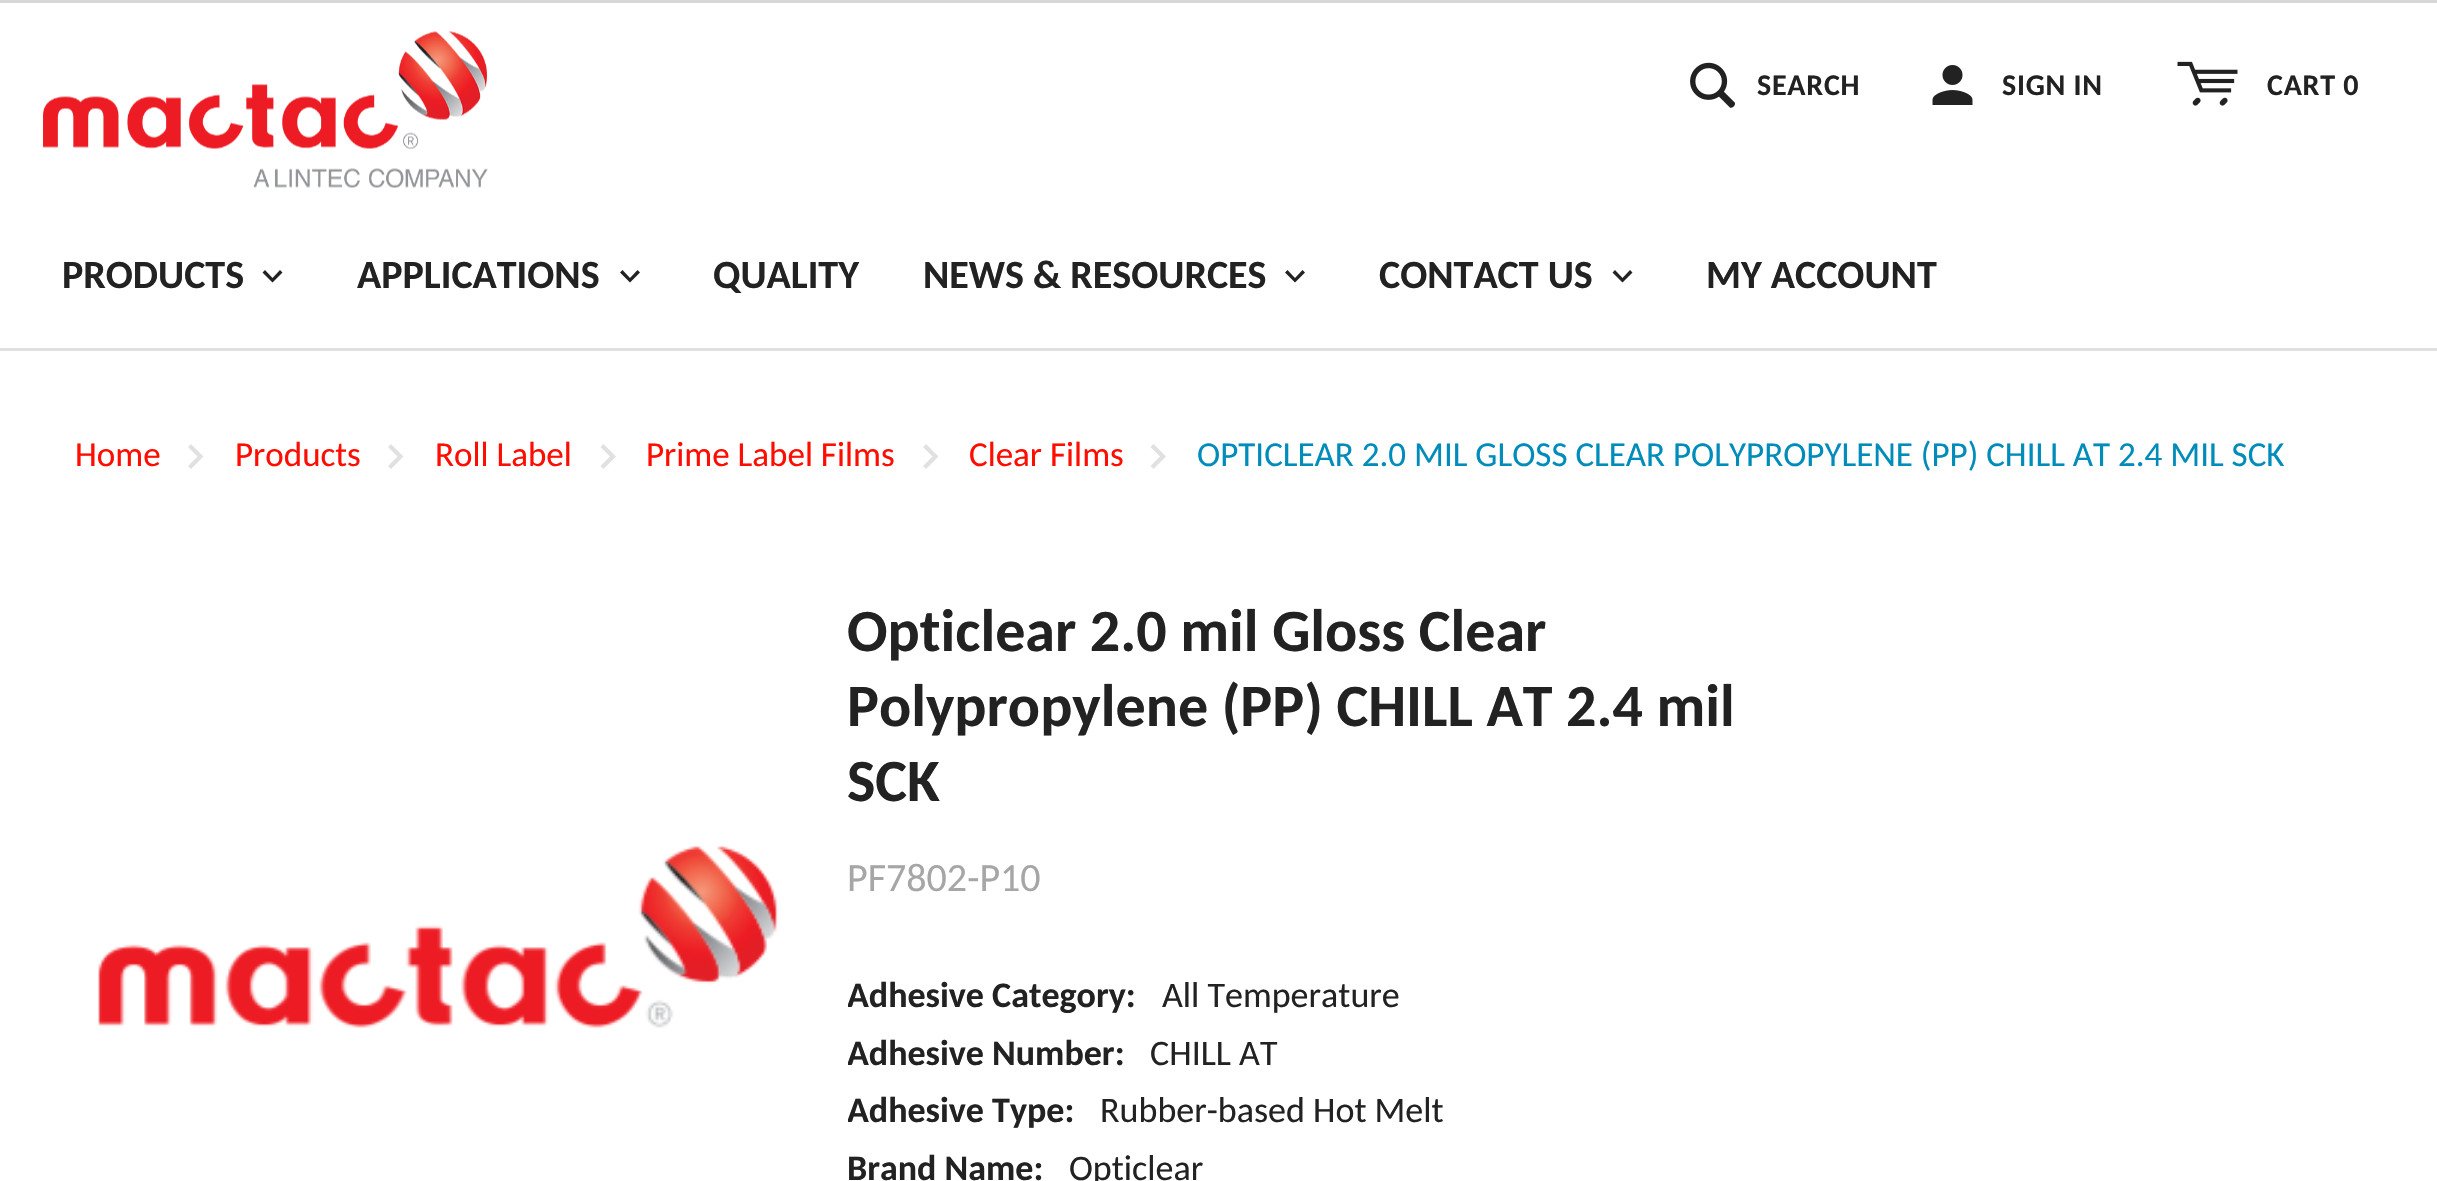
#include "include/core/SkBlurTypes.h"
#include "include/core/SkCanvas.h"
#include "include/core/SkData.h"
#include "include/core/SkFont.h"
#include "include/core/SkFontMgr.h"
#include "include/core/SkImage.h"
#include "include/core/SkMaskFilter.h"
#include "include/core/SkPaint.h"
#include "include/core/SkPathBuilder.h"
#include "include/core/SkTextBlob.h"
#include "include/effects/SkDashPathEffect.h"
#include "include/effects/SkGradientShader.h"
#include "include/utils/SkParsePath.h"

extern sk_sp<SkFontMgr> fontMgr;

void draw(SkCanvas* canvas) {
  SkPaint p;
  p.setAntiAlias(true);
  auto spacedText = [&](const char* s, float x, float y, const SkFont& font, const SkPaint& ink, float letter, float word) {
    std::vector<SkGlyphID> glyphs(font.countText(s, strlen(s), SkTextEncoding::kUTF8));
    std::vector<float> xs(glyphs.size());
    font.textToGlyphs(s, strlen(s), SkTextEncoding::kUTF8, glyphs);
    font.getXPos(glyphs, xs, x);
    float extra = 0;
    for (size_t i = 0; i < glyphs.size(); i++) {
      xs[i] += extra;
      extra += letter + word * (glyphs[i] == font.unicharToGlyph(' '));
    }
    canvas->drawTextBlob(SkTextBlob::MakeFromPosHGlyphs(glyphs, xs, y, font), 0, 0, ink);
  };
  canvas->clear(SK_ColorWHITE);
  p.setColor(SkColorSetRGB(215, 215, 215));
  canvas->drawRect(SkRect::MakeLTRB(0, 0, 2437, 3), p);
  p.setColor(SkColorSetRGB(224, 224, 224));
  canvas->drawRect(SkRect::MakeLTRB(0, 348, 2437, 351), p);
  canvas->drawImageRect(SkImages::DeferredFromEncodedData(SkData::MakeFromFileName("images/1.png")), SkRect::MakeLTRB(43, 31, 488, 188), SkSamplingOptions());
  canvas->drawImageRect(SkImages::DeferredFromEncodedData(SkData::MakeFromFileName("images/2.png")), SkRect::MakeLTRB(1690, 62, 1735, 108), SkSamplingOptions());
  canvas->drawImageRect(SkImages::DeferredFromEncodedData(SkData::MakeFromFileName("images/3.png")), SkRect::MakeLTRB(1932, 65, 1973, 105), SkSamplingOptions());
  canvas->drawImageRect(SkImages::DeferredFromEncodedData(SkData::MakeFromFileName("images/4.png")), SkRect::MakeLTRB(2177, 61, 2238, 106), SkSamplingOptions());
  p.setColor(SkColorSetRGB(34, 34, 34));
  canvas->drawPath(SkPathBuilder().moveTo(280, 270).lineTo(272.5f, 278).lineTo(265, 270).lineTo(262.5f, 272.5f).lineTo(272.5f, 282.5f).lineTo(282.5f, 272.5f).close().detach(), p);
  canvas->drawPath(SkPathBuilder().moveTo(637.5f, 270).lineTo(630, 278).lineTo(622.5f, 270).lineTo(620, 272.5f).lineTo(630, 282.5f).lineTo(640, 272.5f).close().detach(), p);
  canvas->drawPath(SkPathBuilder().moveTo(1302.5f, 270).lineTo(1295, 278).lineTo(1287.5f, 270).lineTo(1285, 272.5f).lineTo(1295, 282.5f).lineTo(1305, 272.5f).close().detach(), p);
  canvas->drawPath(SkPathBuilder().moveTo(1630, 270).lineTo(1622.5f, 278).lineTo(1615, 270).lineTo(1612.5f, 272.5f).lineTo(1622.5f, 282.5f).lineTo(1632.5f, 272.5f).close().detach(), p);
  p.setColor(SkColorSetRGB(225, 225, 225));
  canvas->drawPath(SkPathBuilder().moveTo(191, 444).lineTo(188, 447).lineTo(197.5f, 456.5f).lineTo(188, 466).lineTo(191, 469).lineTo(203.5f, 456.5f).close().detach(), p);
  canvas->drawPath(SkPathBuilder().moveTo(391, 444).lineTo(388, 447).lineTo(397.5f, 456.5f).lineTo(388, 466).lineTo(391, 469).lineTo(403.5f, 456.5f).close().detach(), p);
  canvas->drawPath(SkPathBuilder().moveTo(603.5f, 444).lineTo(600.5f, 447).lineTo(610, 456.5f).lineTo(600.5f, 466).lineTo(603.5f, 469).lineTo(616, 456.5f).close().detach(), p);
  canvas->drawPath(SkPathBuilder().moveTo(926, 444).lineTo(923, 447).lineTo(932.5f, 456.5f).lineTo(923, 466).lineTo(926, 469).lineTo(938.5f, 456.5f).close().detach(), p);
  canvas->drawPath(SkPathBuilder().moveTo(1153.5f, 444).lineTo(1150.5f, 447).lineTo(1160, 456.5f).lineTo(1150.5f, 466).lineTo(1153.5f, 469).lineTo(1166, 456.5f).close().detach(), p);
  canvas->drawImageRect(SkImages::DeferredFromEncodedData(SkData::MakeFromFileName("images/5.png")), SkRect::MakeLTRB(98, 846, 779, 1029), SkSamplingOptions());
  SkFont font1(fontMgr->matchFamilyStyle("Carlito", SkFontStyle::Bold()), 30);
  font1.setSubpixel(true);
  p.setColor(SkColorSetRGB(34, 34, 34));
  spacedText("SEARCH", 1757, 95, font1, p, 0.75f, 0);
  spacedText("SIGN IN", 2002, 95, font1, p, 0.75f, 0);
  spacedText("CART 0", 2267, 95, font1, p, 0.75f, 0);
  SkFont font2(fontMgr->matchFamilyStyle("Carlito", SkFontStyle::Bold()), 40);
  font2.setSubpixel(true);
  canvas->drawString("PRODUCTS", 62, 288, font2, p);
  canvas->drawString("APPLICATIONS", 357, 288, font2, p);
  canvas->drawString("QUALITY", 713, 288, font2, p);
  canvas->drawString("NEWS & RESOURCES", 923, 288, font2, p);
  canvas->drawString("CONTACT US", 1379, 288, font2, p);
  canvas->drawString("MY ACCOUNT", 1706, 288, font2, p);
  SkFont font3(fontMgr->matchFamilyStyle("Carlito", SkFontStyle::Normal()), 35);
  font3.setSubpixel(true);
  p.setColor(SkColorSetRGB(255, 13, 0));
  canvas->drawString("Home", 75, 466, font3, p);
  canvas->drawString("Products", 235, 466, font3, p);
  canvas->drawString("Roll Label", 435, 466, font3, p);
  canvas->drawString("Prime Label Films", 646, 466, font3, p);
  canvas->drawString("Clear Films", 969, 466, font3, p);
  p.setColor(SkColorSetRGB(0, 140, 186));
  canvas->drawString("OPTICLEAR 2.0 MIL GLOSS CLEAR POLYPROPYLENE (PP) CHILL AT 2.4 MIL SCK", 1197, 466, font3, p);
  SkFont font4(fontMgr->matchFamilyStyle("Carlito", SkFontStyle::Bold()), 60);
  font4.setSubpixel(true);
  p.setColor(SkColorSetRGB(34, 34, 34));
  canvas->drawString("Opticlear 2.0 mil Gloss Clear", 847, 651, font4, p);
  canvas->drawString("Polypropylene (PP) CHILL AT 2.4 mil", 847, 726, font4, p);
  canvas->drawString("SCK", 847, 801, font4, p);
  SkFont font5(fontMgr->matchFamilyStyle("Carlito", SkFontStyle::Normal()), 40);
  font5.setSubpixel(true);
  p.setColor(SkColorSetRGB(166, 166, 166));
  canvas->drawString("PF7802-P10", 847, 891, font5, p);
  canvas->save();
  canvas->clipRect(SkRect::MakeLTRB(848, 968, 1753, 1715));
  SkFont font6(fontMgr->matchFamilyStyle("Carlito", SkFontStyle::Bold()), 36);
  font6.setSubpixel(true);
  p.setColor(SkColorSetRGB(34, 34, 34));
  canvas->drawString("Adhesive Category:", 847, 1007, font6, p);
  canvas->restore();
  SkFont font7(fontMgr->matchFamilyStyle("Carlito", SkFontStyle::Normal()), 36);
  font7.setSubpixel(true);
  canvas->drawString("All Temperature", 1162, 1007, font7, p);
  canvas->save();
  canvas->clipRect(SkRect::MakeLTRB(848, 968, 1753, 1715));
  canvas->drawString("Adhesive Number:", 847, 1065, font6, p);
  canvas->restore();
  canvas->drawString("CHILL AT", 1150, 1065, font7, p);
  canvas->save();
  canvas->clipRect(SkRect::MakeLTRB(848, 968, 1753, 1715));
  canvas->drawString("Adhesive Type:", 847, 1122, font6, p);
  canvas->restore();
  canvas->drawString("Rubber-based Hot Melt", 1100, 1122, font7, p);
  canvas->drawString("Brand Name:", 847, 1180, font6, p);
  canvas->drawString("Opticlear", 1069, 1180, font7, p);
}
